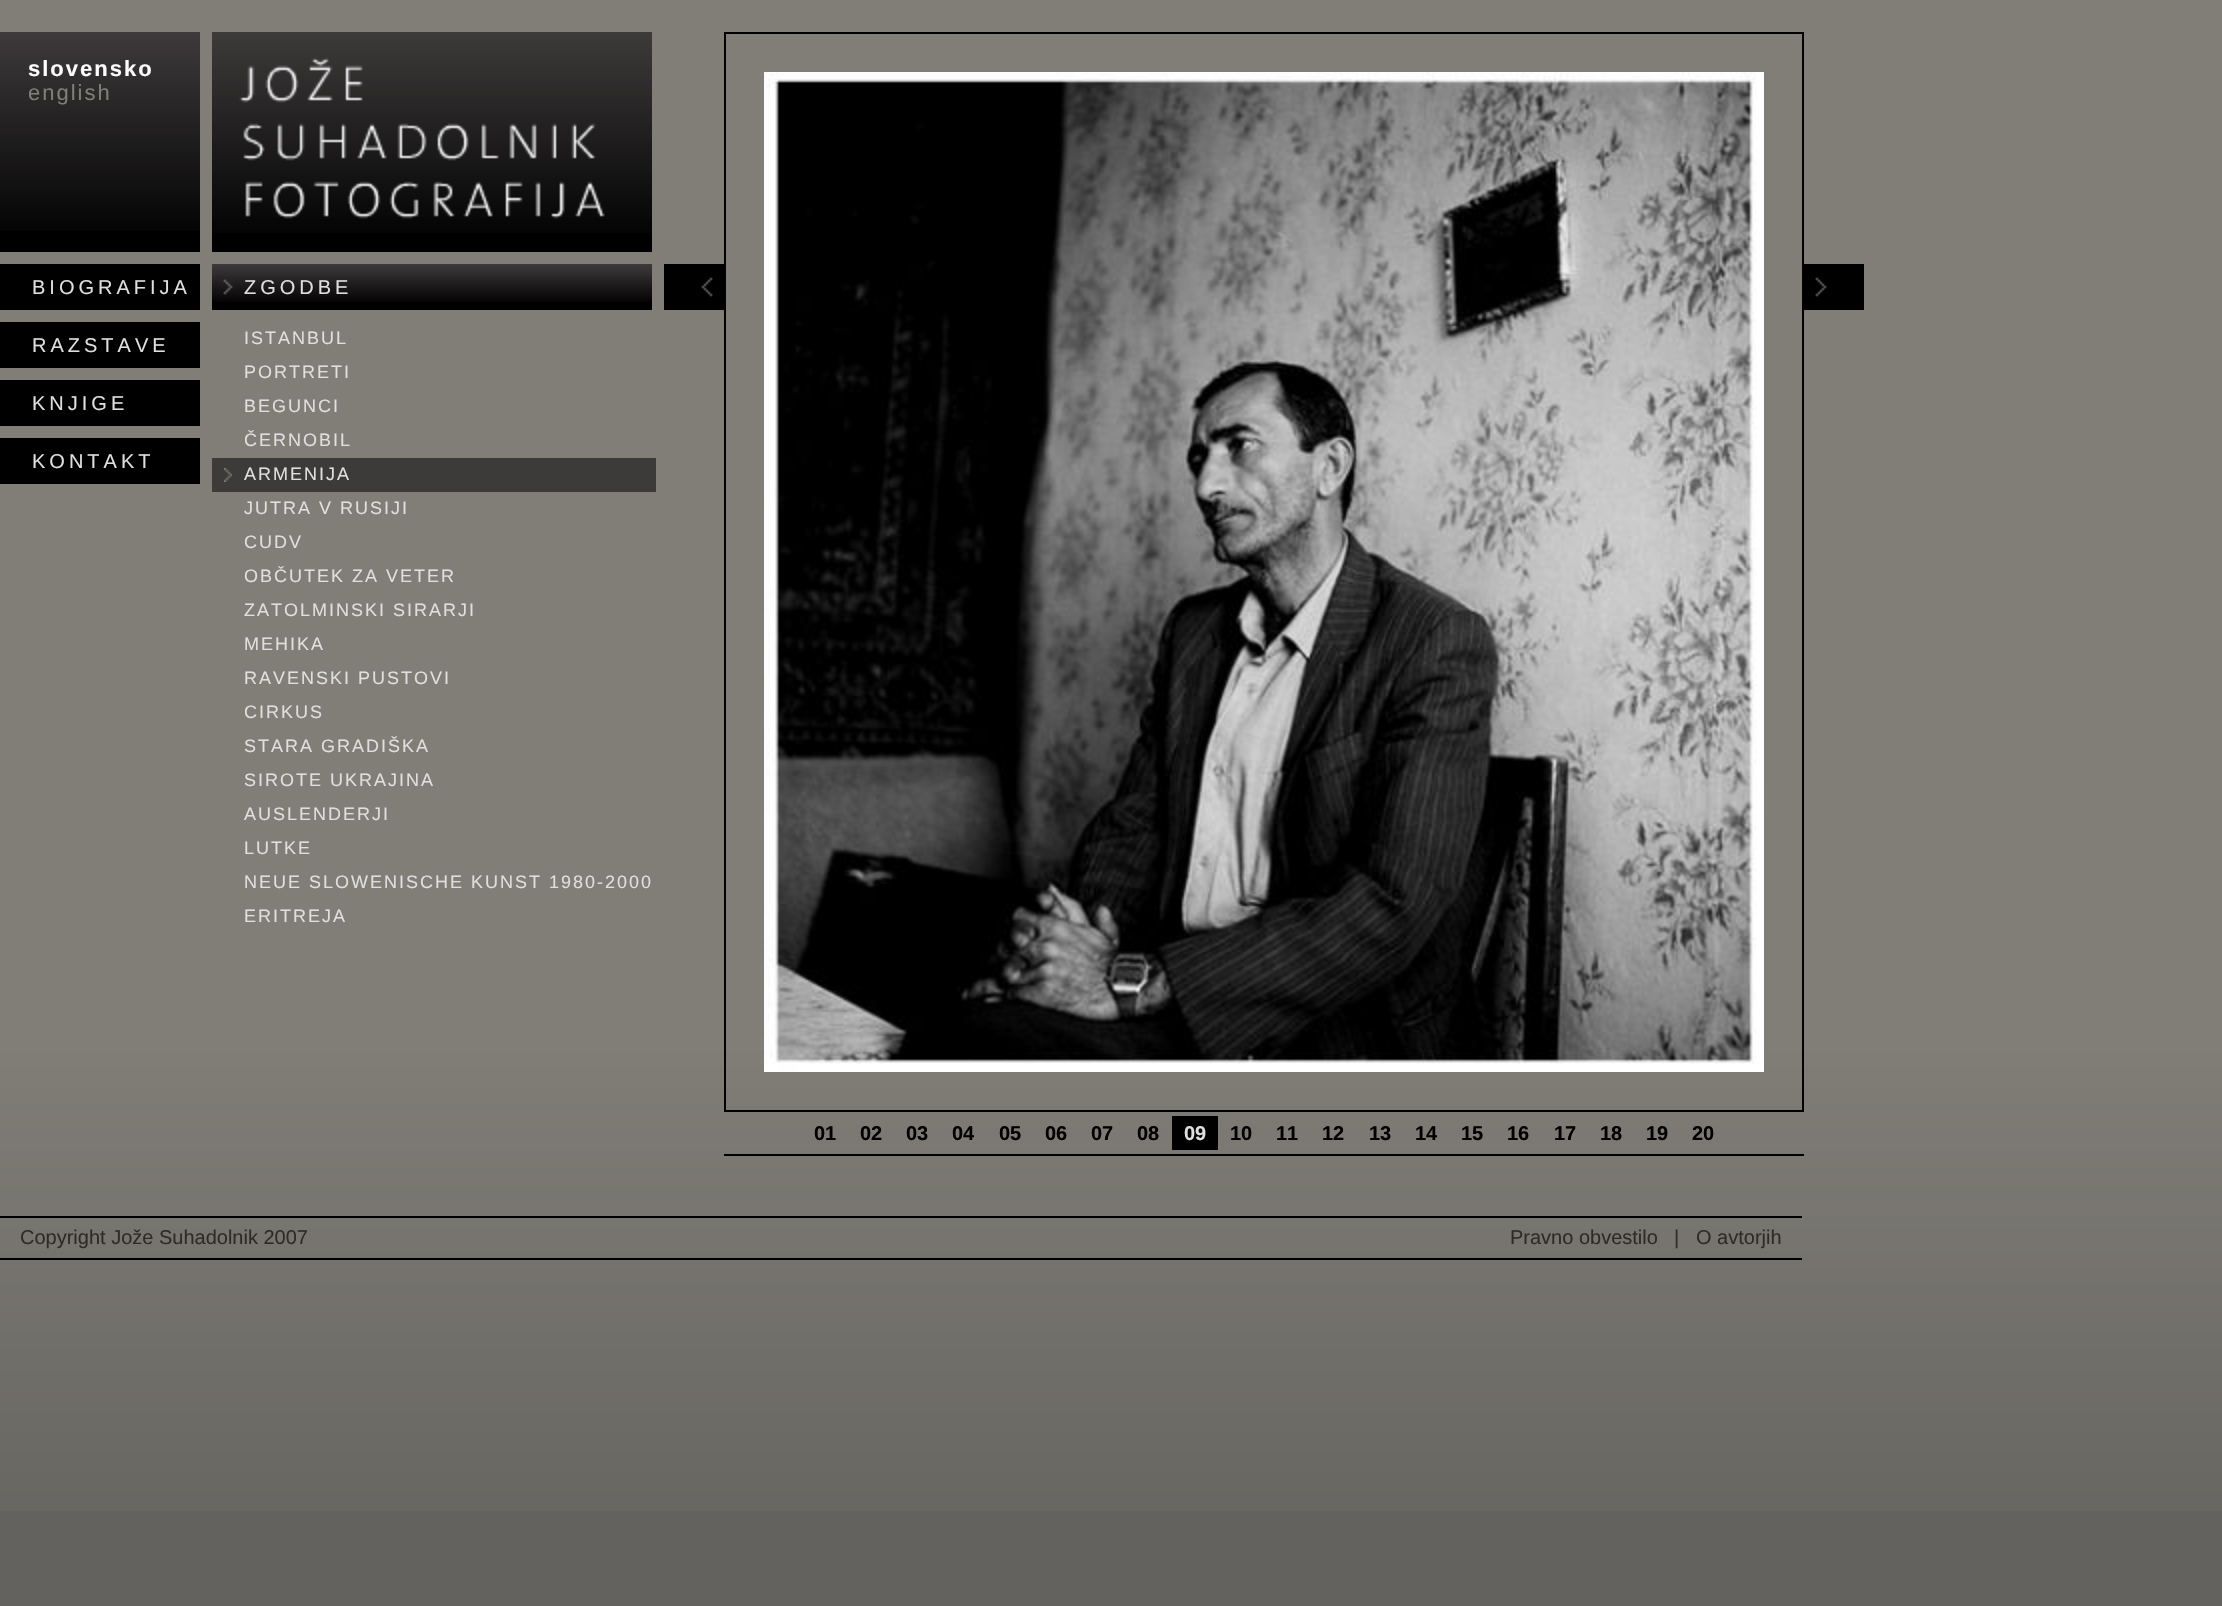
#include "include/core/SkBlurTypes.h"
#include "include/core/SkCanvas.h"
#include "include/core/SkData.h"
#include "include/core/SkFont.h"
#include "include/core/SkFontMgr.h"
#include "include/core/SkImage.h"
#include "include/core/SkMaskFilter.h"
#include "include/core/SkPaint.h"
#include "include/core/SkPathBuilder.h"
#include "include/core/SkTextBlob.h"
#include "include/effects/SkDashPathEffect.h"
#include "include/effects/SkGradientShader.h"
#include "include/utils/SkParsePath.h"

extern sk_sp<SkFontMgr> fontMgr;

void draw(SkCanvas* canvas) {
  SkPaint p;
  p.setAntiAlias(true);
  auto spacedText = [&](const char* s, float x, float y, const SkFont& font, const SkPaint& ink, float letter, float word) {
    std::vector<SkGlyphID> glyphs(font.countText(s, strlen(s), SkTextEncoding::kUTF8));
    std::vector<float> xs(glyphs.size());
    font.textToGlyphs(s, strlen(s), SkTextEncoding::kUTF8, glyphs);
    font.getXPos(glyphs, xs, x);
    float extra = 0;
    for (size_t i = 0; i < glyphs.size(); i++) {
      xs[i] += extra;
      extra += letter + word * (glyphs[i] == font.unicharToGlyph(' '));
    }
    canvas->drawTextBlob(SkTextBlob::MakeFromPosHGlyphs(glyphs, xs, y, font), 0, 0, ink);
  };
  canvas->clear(SkColorSetRGB(99, 98, 94));
  canvas->drawImageRect(SkImages::DeferredFromEncodedData(SkData::MakeFromFileName("images/1.png")), SkRect::MakeLTRB(0, 0, 2222, 1511), SkSamplingOptions());
  p.setColor(SK_ColorBLACK);
  canvas->drawRect(SkRect::MakeLTRB(0, 231, 200, 252), p);
  canvas->drawImageRect(SkImages::DeferredFromEncodedData(SkData::MakeFromFileName("images/2.png")), SkRect::MakeLTRB(0, 32, 200, 231), SkSamplingOptions());
  canvas->drawRect(SkRect::MakeLTRB(0, 264, 200, 310), p);
  canvas->drawRect(SkRect::MakeLTRB(0, 322, 200, 368), p);
  canvas->drawRect(SkRect::MakeLTRB(0, 380, 200, 426), p);
  canvas->drawRect(SkRect::MakeLTRB(0, 438, 200, 484), p);
  canvas->drawRect(SkRect::MakeLTRB(212, 233, 652, 252), p);
  canvas->drawImageRect(SkImages::DeferredFromEncodedData(SkData::MakeFromFileName("images/3.png")), SkRect::MakeLTRB(212, 32, 652, 233), SkSamplingOptions());
  canvas->drawRect(SkRect::MakeLTRB(212, 302, 652, 310), p);
  canvas->drawImageRect(SkImages::DeferredFromEncodedData(SkData::MakeFromFileName("images/4.png")), SkRect::MakeLTRB(212, 264, 652, 302), SkSamplingOptions());
  p.setColor(SkColorSetRGB(61, 58, 58));
  canvas->drawRect(SkRect::MakeLTRB(212, 458, 656, 492), p);
  canvas->drawImageRect(SkImages::DeferredFromEncodedData(SkData::MakeFromFileName("images/5.png")), SkRect::MakeLTRB(224, 468, 232, 482), SkSamplingOptions());
  p.setColor(SK_ColorBLACK);
  canvas->drawRect(SkRect::MakeLTRB(664, 264, 724, 310), p);
  canvas->drawImageRect(SkImages::DeferredFromEncodedData(SkData::MakeFromFileName("images/6.png")), SkRect::MakeLTRB(701, 277, 713, 297), SkSamplingOptions());
  p.setStyle(SkPaint::kStroke_Style);
  p.setStrokeWidth(2);
  canvas->drawRect(SkRect::MakeLTRB(725, 33, 1803, 1111), p);
  canvas->drawImageRect(SkImages::DeferredFromEncodedData(SkData::MakeFromFileName("images/7.png")), SkRect::MakeLTRB(764, 72, 1764, 1072), SkSamplingOptions());
  p.setStyle(SkPaint::kFill_Style);
  canvas->drawRect(SkRect::MakeLTRB(1804, 264, 1864, 310), p);
  canvas->drawImageRect(SkImages::DeferredFromEncodedData(SkData::MakeFromFileName("images/8.png")), SkRect::MakeLTRB(1815, 277, 1827, 297), SkSamplingOptions());
  canvas->drawRect(SkRect::MakeLTRB(724, 1154, 1804, 1156), p);
  canvas->drawRect(SkRect::MakeLTRB(1172, 1116, 1218, 1150), p);
  canvas->drawRect(SkRect::MakeLTRB(0, 1216, 1802, 1218), p);
  canvas->drawRect(SkRect::MakeLTRB(0, 1258, 1802, 1260), p);
  SkFont font1(fontMgr->matchFamilyStyle("Liberation Sans", SkFontStyle::Bold()), 22);
  font1.setSubpixel(true);
  p.setColor(SK_ColorWHITE);
  spacedText("slovensko", 28, 76, font1, p, 2, 0);
  SkFont font2(fontMgr->matchFamilyStyle("Liberation Sans", SkFontStyle::Normal()), 22);
  font2.setSubpixel(true);
  p.setColor(SkColorSetRGB(128, 126, 119));
  spacedText("english", 28, 100, font2, p, 2, 0);
  SkFont font3(fontMgr->matchFamilyStyle("Liberation Sans", SkFontStyle::Normal()), 20);
  font3.setSubpixel(true);
  p.setColor(SkColorSetRGB(223, 223, 223));
  spacedText("BIOGRAFIJA", 32, 294, font3, p, 4, 0);
  spacedText("RAZSTAVE", 32, 352, font3, p, 4, 0);
  spacedText("KNJIGE", 32, 410, font3, p, 4, 0);
  spacedText("KONTAKT", 32, 468, font3, p, 4, 0);
  spacedText("ZGODBE", 244, 294, font3, p, 4, 0);
  SkFont font4(fontMgr->matchFamilyStyle("Liberation Sans", SkFontStyle::Normal()), 18);
  font4.setSubpixel(true);
  spacedText("ISTANBUL", 244, 344, font4, p, 2, 0);
  spacedText("PORTRETI", 244, 378, font4, p, 2, 0);
  spacedText("BEGUNCI", 244, 412, font4, p, 2, 0);
  spacedText("ČERNOBIL", 244, 446, font4, p, 2, 0);
  spacedText("ARMENIJA", 244, 480, font4, p, 2, 0);
  spacedText("JUTRA V RUSIJI", 244, 514, font4, p, 2, 0);
  spacedText("CUDV", 244, 548, font4, p, 2, 0);
  spacedText("OBČUTEK ZA VETER", 244, 582, font4, p, 2, 0);
  spacedText("ZATOLMINSKI SIRARJI", 244, 616, font4, p, 2, 0);
  spacedText("MEHIKA", 244, 650, font4, p, 2, 0);
  spacedText("RAVENSKI PUSTOVI", 244, 684, font4, p, 2, 0);
  spacedText("CIRKUS", 244, 718, font4, p, 2, 0);
  spacedText("STARA GRADIŠKA", 244, 752, font4, p, 2, 0);
  spacedText("SIROTE UKRAJINA", 244, 786, font4, p, 2, 0);
  spacedText("AUSLENDERJI", 244, 820, font4, p, 2, 0);
  spacedText("LUTKE", 244, 854, font4, p, 2, 0);
  spacedText("NEUE SLOWENISCHE KUNST 1980-2000", 244, 888, font4, p, 2, 0);
  spacedText("ERITREJA", 244, 922, font4, p, 2, 0);
  SkFont font5(fontMgr->matchFamilyStyle("Liberation Sans", SkFontStyle::Bold()), 20);
  font5.setSubpixel(true);
  p.setColor(SK_ColorBLACK);
  canvas->drawString("01", 814, 1140, font5, p);
  canvas->drawString("02", 860, 1140, font5, p);
  canvas->drawString("03", 906, 1140, font5, p);
  canvas->drawString("04", 952, 1140, font5, p);
  canvas->drawString("05", 999, 1140, font5, p);
  canvas->drawString("06", 1045, 1140, font5, p);
  canvas->drawString("07", 1091, 1140, font5, p);
  canvas->drawString("08", 1137, 1140, font5, p);
  p.setColor(SkColorSetRGB(223, 223, 223));
  canvas->drawString("09", 1184, 1140, font5, p);
  p.setColor(SK_ColorBLACK);
  canvas->drawString("10", 1230, 1140, font5, p);
  canvas->drawString("11", 1276, 1140, font5, p);
  canvas->drawString("12", 1322, 1140, font5, p);
  canvas->drawString("13", 1369, 1140, font5, p);
  canvas->drawString("14", 1415, 1140, font5, p);
  canvas->drawString("15", 1461, 1140, font5, p);
  canvas->drawString("16", 1507, 1140, font5, p);
  canvas->drawString("17", 1554, 1140, font5, p);
  canvas->drawString("18", 1600, 1140, font5, p);
  canvas->drawString("19", 1646, 1140, font5, p);
  canvas->drawString("20", 1692, 1140, font5, p);
  p.setColor(SkColorSetRGB(44, 43, 41));
  canvas->drawString("Copyright Jože Suhadolnik 2007", 20, 1244, font3, p);
  canvas->drawString("Pravno obvestilo", 1510, 1244, font3, p);
  canvas->drawString("|", 1674, 1244, font3, p);
  canvas->drawString("O avtorjih", 1696, 1244, font3, p);
}
